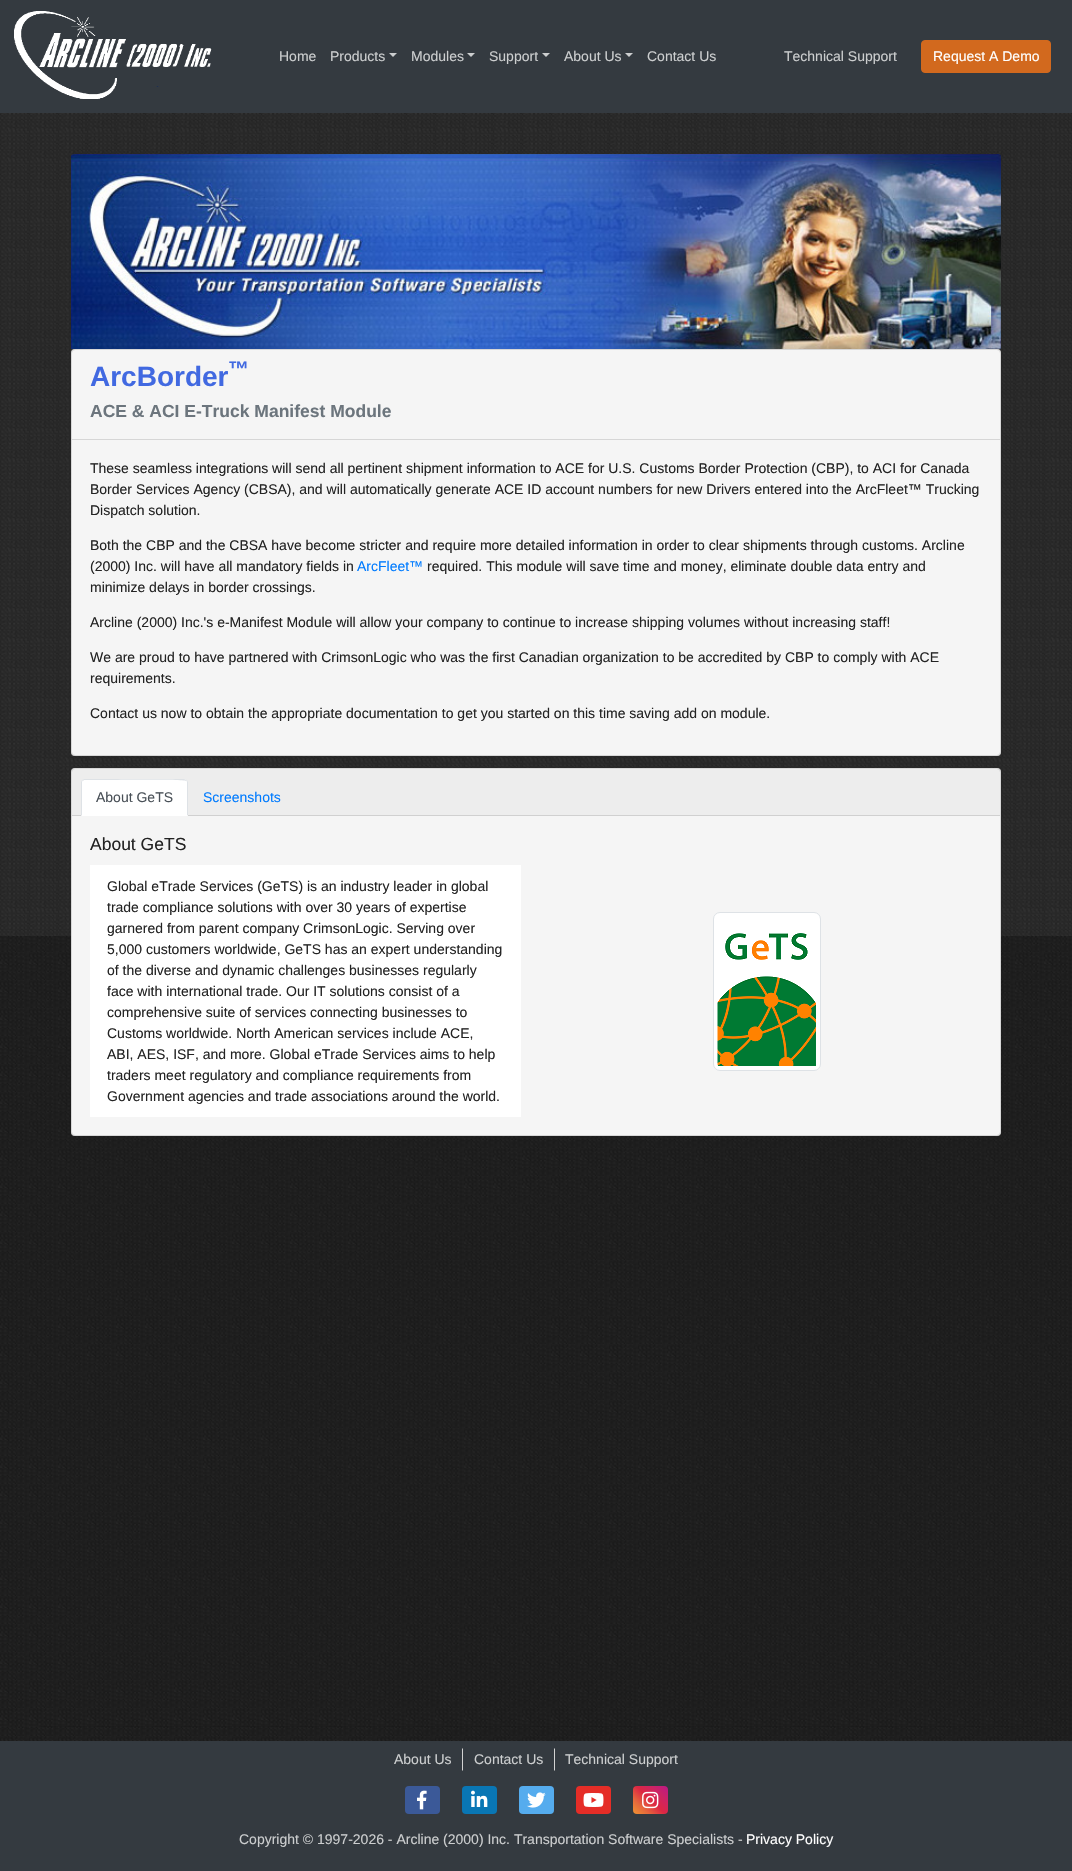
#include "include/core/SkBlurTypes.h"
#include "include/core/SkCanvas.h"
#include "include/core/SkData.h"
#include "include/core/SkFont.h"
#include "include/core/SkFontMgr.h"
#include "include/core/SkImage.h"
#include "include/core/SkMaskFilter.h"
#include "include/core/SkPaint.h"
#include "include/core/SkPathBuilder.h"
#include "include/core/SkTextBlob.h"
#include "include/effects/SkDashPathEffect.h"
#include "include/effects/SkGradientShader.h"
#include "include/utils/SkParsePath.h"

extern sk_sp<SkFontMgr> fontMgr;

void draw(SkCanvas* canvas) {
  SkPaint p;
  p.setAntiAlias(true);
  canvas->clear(SK_ColorWHITE);
  canvas->drawImageRect(SkImages::DeferredFromEncodedData(SkData::MakeFromFileName("images/1.png")), SkRect::MakeLTRB(0, 936, 1072, 1741), SkSamplingOptions());
  p.setColor(SkColorSetRGB(52, 58, 64));
  canvas->drawRect(SkRect::MakeLTRB(0, 0, 1072, 113), p);
  canvas->drawImageRect(SkImages::DeferredFromEncodedData(SkData::MakeFromFileName("images/2.png")), SkRect::MakeLTRB(14, 11, 212, 99), SkSamplingOptions());
  p.setColor(SkColorSetRGB(204, 206, 207));
  canvas->drawPath(SkPathBuilder().moveTo(389, 53).lineTo(397, 53).lineTo(393, 57).close().detach(), p);
  canvas->drawPath(SkPathBuilder().moveTo(467, 53).lineTo(475, 53).lineTo(471, 57).close().detach(), p);
  canvas->drawPath(SkPathBuilder().moveTo(542, 53).lineTo(550, 53).lineTo(546, 57).close().detach(), p);
  canvas->drawPath(SkPathBuilder().moveTo(625, 53).lineTo(633, 53).lineTo(629, 57).close().detach(), p);
  p.setColor(SkColorSetRGB(210, 105, 30));
  canvas->drawRoundRect(SkRect::MakeLTRB(921.5f, 40.5f, 1050.5f, 72.5f), 3.5f, 3.5f, p);
  p.setStyle(SkPaint::kStroke_Style);
  p.setStrokeWidth(1);
  canvas->drawRoundRect(SkRect::MakeLTRB(921.5f, 40.5f, 1050.5f, 72.5f), 3.5f, 3.5f, p);
  canvas->drawImageRect(SkImages::DeferredFromEncodedData(SkData::MakeFromFileName("images/3.png")), SkRect::MakeLTRB(0, 113, 1072, 936), SkSamplingOptions());
  canvas->drawImageRect(SkImages::DeferredFromEncodedData(SkData::MakeFromFileName("images/4.png")), SkRect::MakeLTRB(71, 154, 1001, 349), SkSamplingOptions());
  p.setStyle(SkPaint::kFill_Style);
  p.setColor(SkColorSetRGB(245, 245, 245));
  canvas->drawRoundRect(SkRect::MakeLTRB(71, 349, 1001, 756), 4, 4, p);
  p.setStyle(SkPaint::kStroke_Style);
  p.setColor(SkColorSetARGB(31, 0, 0, 0));
  canvas->drawRoundRect(SkRect::MakeLTRB(71.5f, 349.5f, 1000.5f, 755.5f), 3.5f, 3.5f, p);
  p.setStyle(SkPaint::kFill_Style);
  p.setColor(SkColorSetRGB(214, 214, 214));
  canvas->drawRect(SkRect::MakeLTRB(72, 439, 1000, 440), p);
  p.setColor(SkColorSetRGB(245, 245, 245));
  canvas->drawRoundRect(SkRect::MakeLTRB(71, 768, 1001, 1136), 4, 4, p);
  p.setStyle(SkPaint::kStroke_Style);
  p.setColor(SkColorSetARGB(31, 0, 0, 0));
  canvas->drawRoundRect(SkRect::MakeLTRB(71.5f, 768.5f, 1000.5f, 1135.5f), 3.5f, 3.5f, p);
  p.setStyle(SkPaint::kFill_Style);
  p.setColor(SkColorSetARGB(8, 0, 0, 0));
  canvas->drawRect(SkRect::MakeLTRB(72, 769, 1000, 815), p);
  p.setColor(SkColorSetRGB(208, 208, 208));
  canvas->drawRect(SkRect::MakeLTRB(72, 815, 1000, 816), p);
  p.setColor(SK_ColorWHITE);
  canvas->drawPath(SkPathBuilder().moveTo(85, 779).lineTo(184, 779).cubicTo(186, 779, 188, 781, 188, 783).lineTo(188, 816).lineTo(81, 816).lineTo(81, 783).cubicTo(81, 781, 83, 779, 85, 779).close().detach(), p);
  p.setColor(SkColorSetRGB(222, 226, 230));
  canvas->drawPath(SkPathBuilder().moveTo(84, 779).lineTo(82, 780).lineTo(83, 781).lineTo(84, 780).lineTo(101, 780).cubicTo(110, 780, 184, 779, 186, 781).lineTo(187, 780).lineTo(184, 779).close().detach(), p);
  canvas->drawPath(SkPathBuilder().moveTo(188, 816).lineTo(188, 782).lineTo(187, 780).lineTo(186.5f, 780.5f).lineTo(187, 782).lineTo(187, 815).close().detach(), p);
  p.setColor(SK_ColorWHITE);
  canvas->drawPath(SkPathBuilder().moveTo(188, 816).lineTo(187, 815).lineTo(82, 815).lineTo(81, 816).close().detach(), p);
  p.setColor(SkColorSetRGB(222, 226, 230));
  canvas->drawPath(SkPathBuilder().moveTo(81, 816).lineTo(82, 815).lineTo(82, 782).lineTo(82.5f, 780.5f).lineTo(82, 780).lineTo(81, 782).close().detach(), p);
  p.setColor(SK_ColorWHITE);
  canvas->drawRect(SkRect::MakeLTRB(90, 865, 521, 1117), p);
  canvas->drawRoundRect(SkRect::MakeLTRB(713.5f, 912.5f, 820.5f, 1070.5f), 6.5f, 6.5f, p);
  p.setStyle(SkPaint::kStroke_Style);
  p.setColor(SkColorSetRGB(222, 226, 230));
  canvas->drawRoundRect(SkRect::MakeLTRB(713.5f, 912.5f, 820.5f, 1070.5f), 6.5f, 6.5f, p);
  canvas->drawImageRect(SkImages::DeferredFromEncodedData(SkData::MakeFromFileName("images/5.png")), SkRect::MakeLTRB(717, 933, 816, 1066), SkSamplingOptions());
  p.setStyle(SkPaint::kFill_Style);
  p.setColor(SkColorSetARGB(26, 0, 0, 0));
  canvas->drawRect(SkRect::MakeLTRB(41, 1726, 1031, 1727), p);
  p.setColor(SkColorSetRGB(52, 58, 64));
  canvas->drawRect(SkRect::MakeLTRB(0, 1741, 1072, 1871), p);
  p.setColor(SkColorSetRGB(211, 211, 211));
  canvas->drawPath(SkPathBuilder().moveTo(463, 1748).lineTo(462, 1749).lineTo(462, 1770).lineTo(463, 1771).close().detach(), p);
  canvas->drawPath(SkPathBuilder().moveTo(555, 1748).lineTo(555, 1771).lineTo(554, 1770).lineTo(554, 1749).close().detach(), p);
  p.setColor(SkColorSetRGB(59, 89, 152));
  canvas->drawRoundRect(SkRect::MakeLTRB(405, 1786, 440, 1814), 4, 4, p);
  canvas->drawImageRect(SkImages::DeferredFromEncodedData(SkData::MakeFromFileName("images/6.png")), SkRect::MakeLTRB(417, 1790, 427, 1810), SkSamplingOptions());
  p.setColor(SkColorSetRGB(9, 118, 180));
  canvas->drawRoundRect(SkRect::MakeLTRB(462, 1786, 497, 1814), 4, 4, p);
  canvas->drawImageRect(SkImages::DeferredFromEncodedData(SkData::MakeFromFileName("images/7.png")), SkRect::MakeLTRB(471, 1790, 488, 1807), SkSamplingOptions());
  p.setColor(SkColorSetRGB(85, 172, 238));
  canvas->drawRoundRect(SkRect::MakeLTRB(519, 1786, 554, 1814), 4, 4, p);
  canvas->drawImageRect(SkImages::DeferredFromEncodedData(SkData::MakeFromFileName("images/8.png")), SkRect::MakeLTRB(527, 1792, 546, 1808), SkSamplingOptions());
  p.setColor(SkColorSetRGB(229, 45, 39));
  canvas->drawRoundRect(SkRect::MakeLTRB(576, 1786, 611, 1814), 4, 4, p);
  canvas->drawImageRect(SkImages::DeferredFromEncodedData(SkData::MakeFromFileName("images/9.png")), SkRect::MakeLTRB(583, 1793, 604, 1807), SkSamplingOptions());
  {
    const SkColor colors[] = {SkColorSetRGB(240, 148, 51), SkColorSetRGB(230, 104, 60), SkColorSetRGB(220, 39, 67), SkColorSetRGB(204, 35, 102), SkColorSetRGB(188, 24, 136)};
    const float stops[] = {0, 0.25f, 0.5f, 0.75f, 1};
    const SkPoint ends[] = {{635, 1816}, {666, 1784}};
    p.setShader(SkGradientShader::MakeLinear(ends, colors, stops, 5, SkTileMode::kClamp));
    p.setAlpha(255);
  }
  canvas->drawRoundRect(SkRect::MakeLTRB(633, 1786, 668, 1814), 4, 4, p);
  canvas->drawImageRect(SkImages::DeferredFromEncodedData(SkData::MakeFromFileName("images/10.png")), SkRect::MakeLTRB(642, 1791, 659, 1809), SkSamplingOptions());
  SkFont font1(fontMgr->matchFamilyStyle("Liberation Sans", SkFontStyle::Normal()), 14);
  font1.setSubpixel(true);
  p.setShader(nullptr);
  p.setColor(SkColorSetRGB(204, 206, 207));
  canvas->drawString("Home", 279, 61, font1, p);
  canvas->drawString("Products", 330, 61, font1, p);
  canvas->drawString("Modules", 411, 61, font1, p);
  canvas->drawString("Support", 489, 61, font1, p);
  canvas->drawString("About Us", 564, 61, font1, p);
  canvas->drawString("Contact Us", 647, 61, font1, p);
  canvas->drawString("Technical Support", 784, 61, font1, p);
  p.setColor(SK_ColorWHITE);
  canvas->drawString("Request A Demo", 933, 61, font1, p);
  SkFont font2(fontMgr->matchFamilyStyle("Liberation Sans", SkFontStyle::Bold()), 28);
  font2.setSubpixel(true);
  p.setColor(SkColorSetRGB(65, 105, 225));
  canvas->drawString("ArcBorder", 90, 386, font2, p);
  SkFont font3(fontMgr->matchFamilyStyle("Liberation Sans", SkFontStyle::Bold()), 21);
  font3.setSubpixel(true);
  canvas->drawString("™", 228, 376, font3, p);
  SkFont font4(fontMgr->matchFamilyStyle("Liberation Sans", SkFontStyle::Bold()), 17.5f);
  font4.setSubpixel(true);
  p.setColor(SkColorSetRGB(108, 117, 125));
  canvas->drawString("ACE & ACI E-Truck Manifest Module", 90, 417, font4, p);
  p.setColor(SkColorSetRGB(35, 35, 35));
  canvas->drawString("These seamless integrations will send all pertinent shipment information to ACE for U.S. Customs Border Protection (CBP), to ACI for Canada", 90, 473, font1, p);
  canvas->drawString("Border Services Agency (CBSA), and will automatically generate ACE ID account numbers for new Drivers entered into the ArcFleet™ Trucking", 90, 494, font1, p);
  canvas->drawString("Dispatch solution.", 90, 515, font1, p);
  canvas->drawString("Both the CBP and the CBSA have become stricter and require more detailed information in order to clear shipments through customs. Arcline", 90, 550, font1, p);
  canvas->drawString("(2000) Inc. will have all mandatory fields in", 90, 571, font1, p);
  p.setColor(SkColorSetRGB(0, 123, 255));
  canvas->drawString("ArcFleet™", 357, 571, font1, p);
  p.setColor(SkColorSetRGB(35, 35, 35));
  canvas->drawString("required. This module will save time and money, eliminate double data entry and", 427, 571, font1, p);
  canvas->drawString("minimize delays in border crossings.", 90, 592, font1, p);
  canvas->drawString("Arcline (2000) Inc.'s e-Manifest Module will allow your company to continue to increase shipping volumes without increasing staff!", 90, 627, font1, p);
  canvas->drawString("We are proud to have partnered with CrimsonLogic who was the first Canadian organization to be accredited by CBP to comply with ACE", 90, 662, font1, p);
  canvas->drawString("requirements.", 90, 683, font1, p);
  canvas->drawString("Contact us now to obtain the appropriate documentation to get you started on this time saving add on module.", 90, 718, font1, p);
  p.setColor(SkColorSetRGB(73, 80, 87));
  canvas->drawString("About GeTS", 96, 802, font1, p);
  p.setColor(SkColorSetRGB(0, 123, 255));
  canvas->drawString("Screenshots", 203, 802, font1, p);
  SkFont font5(fontMgr->matchFamilyStyle("Liberation Sans", SkFontStyle::Normal()), 17.5f);
  font5.setSubpixel(true);
  p.setColor(SkColorSetRGB(35, 35, 35));
  canvas->drawString("About GeTS", 90, 850, font5, p);
  canvas->drawString("Global eTrade Services (GeTS) is an industry leader in global", 107, 891, font1, p);
  canvas->drawString("trade compliance solutions with over 30 years of expertise", 107, 912, font1, p);
  canvas->drawString("garnered from parent company CrimsonLogic. Serving over", 107, 933, font1, p);
  canvas->drawString("5,000 customers worldwide, GeTS has an expert understanding", 107, 954, font1, p);
  canvas->drawString("of the diverse and dynamic challenges businesses regularly", 107, 975, font1, p);
  canvas->drawString("face with international trade. Our IT solutions consist of a", 107, 996, font1, p);
  canvas->drawString("comprehensive suite of services connecting businesses to", 107, 1017, font1, p);
  canvas->drawString("Customs worldwide. North American services include ACE,", 107, 1038, font1, p);
  canvas->drawString("ABI, AES, ISF, and more. Global eTrade Services aims to help", 107, 1059, font1, p);
  canvas->drawString("traders meet regulatory and compliance requirements from", 107, 1080, font1, p);
  canvas->drawString("Government agencies and trade associations around the world.", 107, 1101, font1, p);
  p.setColor(SkColorSetRGB(204, 206, 207));
  canvas->drawString("About Us", 394, 1764, font1, p);
  canvas->drawString("Contact Us", 474, 1764, font1, p);
  canvas->drawString("Technical Support", 565, 1764, font1, p);
  canvas->drawString("Copyright © 1997-2026 - Arcline (2000) Inc. Transportation Software Specialists -", 239, 1844, font1, p);
  p.setColor(SK_ColorWHITE);
  canvas->drawString("Privacy Policy", 746, 1844, font1, p);
}
